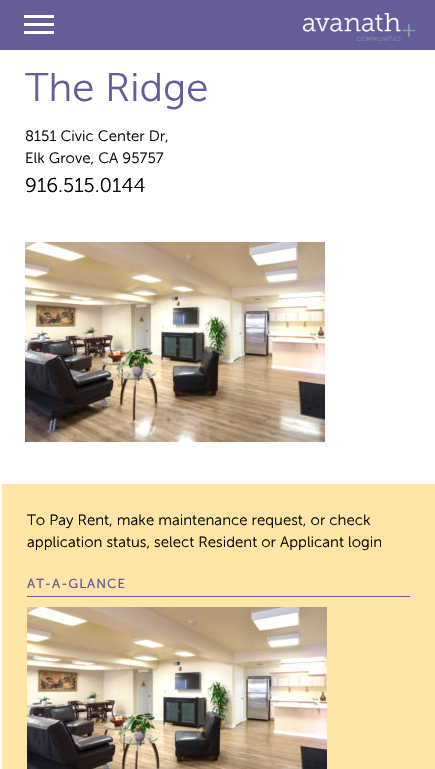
#include "include/core/SkBlurTypes.h"
#include "include/core/SkCanvas.h"
#include "include/core/SkData.h"
#include "include/core/SkFont.h"
#include "include/core/SkFontMgr.h"
#include "include/core/SkImage.h"
#include "include/core/SkMaskFilter.h"
#include "include/core/SkPaint.h"
#include "include/core/SkPathBuilder.h"
#include "include/core/SkTextBlob.h"
#include "include/effects/SkDashPathEffect.h"
#include "include/effects/SkGradientShader.h"
#include "include/utils/SkParsePath.h"

extern sk_sp<SkFontMgr> fontMgr;

void draw(SkCanvas* canvas) {
  SkPaint p;
  p.setAntiAlias(true);
  auto spacedText = [&](const char* s, float x, float y, const SkFont& font, const SkPaint& ink, float letter, float word) {
    std::vector<SkGlyphID> glyphs(font.countText(s, strlen(s), SkTextEncoding::kUTF8));
    std::vector<float> xs(glyphs.size());
    font.textToGlyphs(s, strlen(s), SkTextEncoding::kUTF8, glyphs);
    font.getXPos(glyphs, xs, x);
    float extra = 0;
    for (size_t i = 0; i < glyphs.size(); i++) {
      xs[i] += extra;
      extra += letter + word * (glyphs[i] == font.unicharToGlyph(' '));
    }
    canvas->drawTextBlob(SkTextBlob::MakeFromPosHGlyphs(glyphs, xs, y, font), 0, 0, ink);
  };
  canvas->clear(SK_ColorWHITE);
  p.setColor(SkColorSetRGB(100, 93, 152));
  canvas->drawRect(SkRect::MakeLTRB(0, 0, 435, 50), p);
  p.setColor(SK_ColorWHITE);
  canvas->drawRect(SkRect::MakeLTRB(24, 23, 54, 26), p);
  canvas->drawRect(SkRect::MakeLTRB(24, 15, 54, 18), p);
  canvas->drawRect(SkRect::MakeLTRB(24, 31, 54, 34), p);
  canvas->drawImageRect(SkImages::DeferredFromEncodedData(SkData::MakeFromFileName("images/1.png")), SkRect::MakeLTRB(303, 13, 415, 41), SkSamplingOptions());
  canvas->drawImageRect(SkImages::DeferredFromEncodedData(SkData::MakeFromFileName("images/2.png")), SkRect::MakeLTRB(25, 242, 325, 442), SkSamplingOptions());
  p.setColor(SkColorSetRGB(254, 229, 165));
  canvas->drawRect(SkRect::MakeLTRB(2, 484, 435, 769), p);
  p.setColor(SkColorSetRGB(100, 93, 152));
  canvas->drawRect(SkRect::MakeLTRB(27, 596, 410, 597), p);
  canvas->drawImageRect(SkImages::DeferredFromEncodedData(SkData::MakeFromFileName("images/3.png")), SkRect::MakeLTRB(27, 607, 327, 769), SkSamplingOptions());
  SkFont font1(fontMgr->matchFamilyStyle("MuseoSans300", SkFontStyle::Normal()), 40);
  font1.setSubpixel(true);
  canvas->drawString("The Ridge", 25, 101, font1, p);
  SkFont font2(fontMgr->matchFamilyStyle("MuseoSans300", SkFontStyle::Normal()), 15);
  font2.setSubpixel(true);
  p.setColor(SK_ColorBLACK);
  canvas->drawString("8151 Civic Center Dr,", 25, 141, font2, p);
  canvas->drawString("Elk Grove, CA 95757", 25, 163, font2, p);
  SkFont font3(fontMgr->matchFamilyStyle("MuseoSans300", SkFontStyle::Normal()), 20);
  font3.setSubpixel(true);
  canvas->drawString("916.515.0144", 25, 192, font3, p);
  canvas->drawString("To Pay Rent, make maintenance request, or check", 27, 525, font2, p);
  canvas->drawString("application status, select Resident or Applicant login", 27, 547, font2, p);
  SkFont font4(fontMgr->matchFamilyStyle("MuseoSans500", SkFontStyle::Normal()), 13);
  font4.setSubpixel(true);
  p.setColor(SkColorSetRGB(100, 93, 152));
  spacedText("AT-A-GLANCE", 27, 588, font4, p, 1, 0);
}
